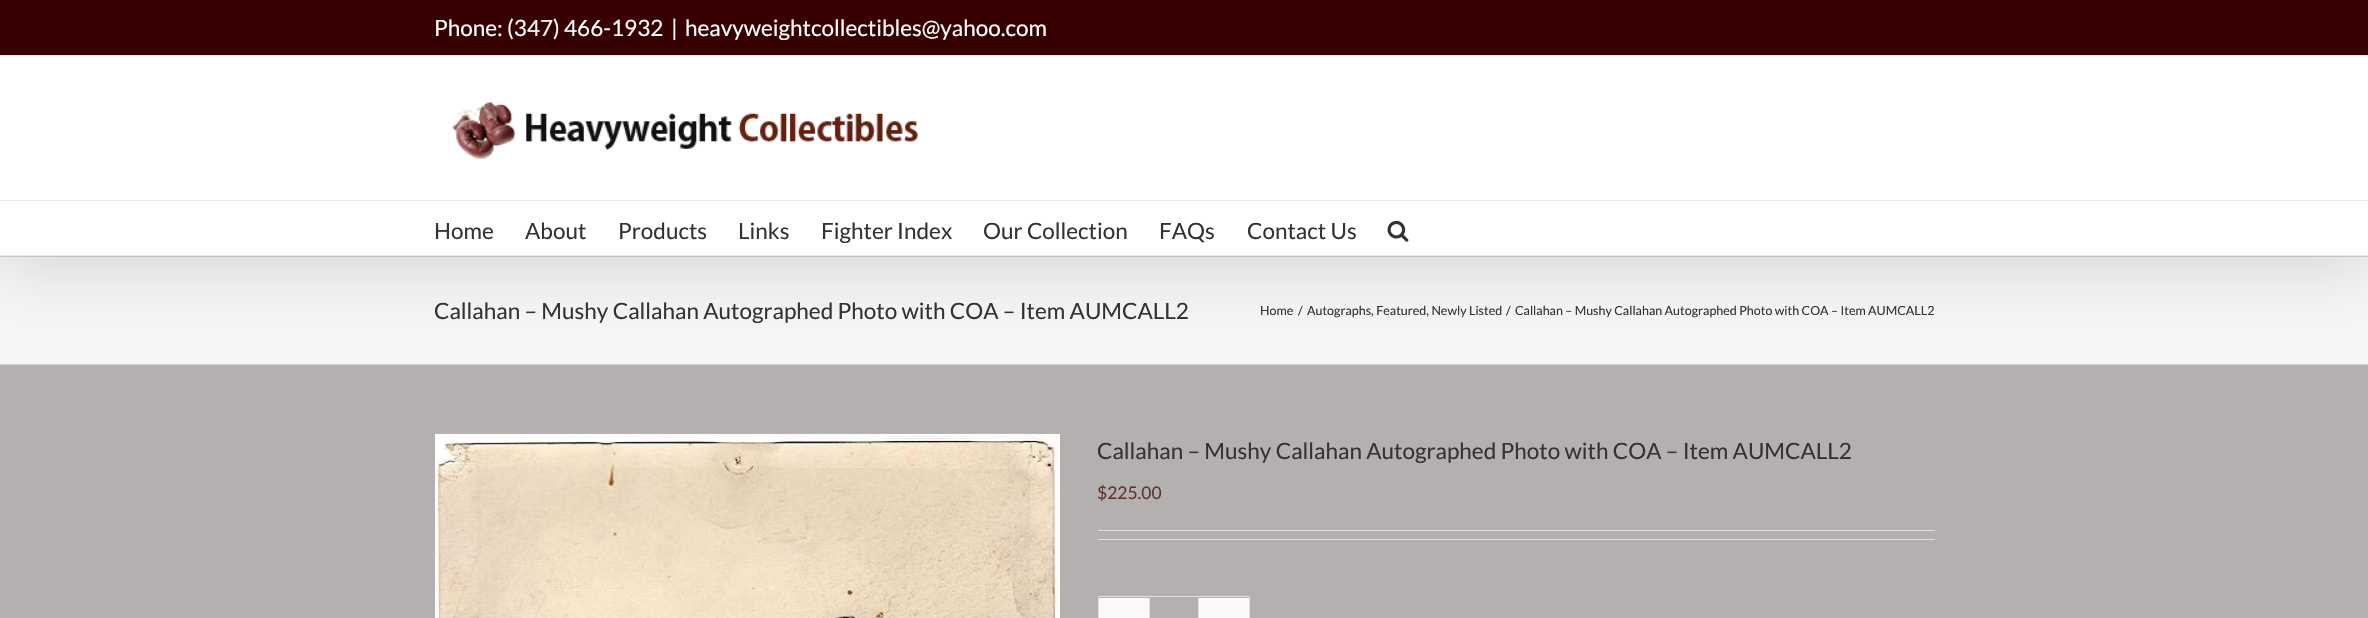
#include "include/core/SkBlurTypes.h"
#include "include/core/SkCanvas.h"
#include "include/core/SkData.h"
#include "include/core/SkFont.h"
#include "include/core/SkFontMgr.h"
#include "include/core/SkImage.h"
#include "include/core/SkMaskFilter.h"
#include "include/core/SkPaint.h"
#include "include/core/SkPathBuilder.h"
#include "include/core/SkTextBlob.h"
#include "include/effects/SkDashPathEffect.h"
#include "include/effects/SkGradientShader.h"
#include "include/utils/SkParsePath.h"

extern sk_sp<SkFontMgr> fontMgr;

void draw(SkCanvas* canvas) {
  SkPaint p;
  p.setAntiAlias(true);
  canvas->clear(SkColorSetRGB(181, 176, 176));
  p.setColor(SkColorSetRGB(246, 246, 246));
  canvas->drawRect(SkRect::MakeLTRB(0, 257, 2368, 364), p);
  p.setColor(SkColorSetRGB(210, 211, 212));
  canvas->drawRect(SkRect::MakeLTRB(0, 256, 2368, 257), p);
  p.setColor(SkColorSetARGB(36, 0, 0, 0));
  p.setMaskFilter(SkMaskFilter::MakeBlur(kNormal_SkBlurStyle, 31));
  canvas->drawRect(SkRect::MakeLTRB(3, 15, 2366, 266), p);
  p.setMaskFilter(nullptr);
  p.setColor(SkColorSetRGB(56, 1, 1));
  canvas->drawRect(SkRect::MakeLTRB(0, 0, 2368, 55), p);
  p.setColor(SkColorSetRGB(229, 229, 229));
  canvas->drawRect(SkRect::MakeLTRB(0, 55, 2368, 56), p);
  p.setColor(SK_ColorWHITE);
  canvas->drawRect(SkRect::MakeLTRB(0, 56, 2368, 200), p);
  p.setColor(SkColorSetRGB(229, 229, 229));
  canvas->drawRect(SkRect::MakeLTRB(0, 200, 2368, 201), p);
  canvas->drawImageRect(SkImages::DeferredFromEncodedData(SkData::MakeFromFileName("images/1.png")), SkRect::MakeLTRB(452, 102, 918, 160), SkSamplingOptions());
  p.setColor(SK_ColorWHITE);
  canvas->drawRect(SkRect::MakeLTRB(0, 201, 2368, 255), p);
  p.setColor(SkColorSetRGB(229, 229, 229));
  canvas->drawRect(SkRect::MakeLTRB(0, 255, 2368, 256), p);
  canvas->drawImageRect(SkImages::DeferredFromEncodedData(SkData::MakeFromFileName("images/2.png")), SkRect::MakeLTRB(1387, 220, 1409, 242), SkSamplingOptions());
  p.setColor(SkColorSetRGB(210, 211, 212));
  canvas->drawRect(SkRect::MakeLTRB(0, 364, 2368, 365), p);
  canvas->drawImageRect(SkImages::DeferredFromEncodedData(SkData::MakeFromFileName("images/3.png")), SkRect::MakeLTRB(435, 433, 1060, 618), SkSamplingOptions());
  p.setColor(SkColorSetRGB(224, 222, 222));
  canvas->drawRect(SkRect::MakeLTRB(1098, 530, 1935, 531), p);
  canvas->drawRect(SkRect::MakeLTRB(1098, 539, 1935, 540), p);
  p.setStyle(SkPaint::kStroke_Style);
  p.setStrokeWidth(1);
  canvas->drawRect(SkRect::MakeLTRB(1098.5f, 596.5f, 1249.5f, 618.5f), p);
  p.setStyle(SkPaint::kFill_Style);
  p.setColor(SkColorSetRGB(251, 250, 249));
  canvas->drawRect(SkRect::MakeLTRB(1099, 598, 1149, 618), p);
  p.setColor(SkColorSetRGB(224, 222, 222));
  canvas->drawRect(SkRect::MakeLTRB(1198, 598, 1199, 618), p);
  canvas->drawRect(SkRect::MakeLTRB(1149, 598, 1150, 618), p);
  p.setColor(SkColorSetRGB(251, 250, 249));
  canvas->drawRect(SkRect::MakeLTRB(1199, 598, 1249, 618), p);
  SkFont font1(fontMgr->matchFamilyStyle("Lato", SkFontStyle::Normal()), 22.5f);
  font1.setSubpixel(true);
  p.setColor(SK_ColorWHITE);
  canvas->drawString("Phone: (347) 466-1932", 434, 36, font1, p);
  canvas->drawString("|", 671, 36, font1, p);
  canvas->drawString("heavyweightcollectibles@yahoo.com", 685, 36, font1, p);
  p.setColor(SkColorSetRGB(51, 51, 51));
  canvas->drawString("Home", 434, 239, font1, p);
  canvas->drawString("About", 525, 239, font1, p);
  canvas->drawString("Products", 618, 239, font1, p);
  canvas->drawString("Links", 738, 239, font1, p);
  canvas->drawString("Fighter Index", 821, 239, font1, p);
  canvas->drawString("Our Collection", 983, 239, font1, p);
  canvas->drawString("FAQs", 1159, 239, font1, p);
  canvas->drawString("Contact Us", 1247, 239, font1, p);
  canvas->drawString("Callahan – Mushy Callahan Autographed Photo with COA – Item AUMCALL2", 434, 319, font1, p);
  SkFont font2(fontMgr->matchFamilyStyle("Lato", SkFontStyle::Normal()), 12.5f);
  font2.setSubpixel(true);
  canvas->drawString("Home", 1260, 315, font2, p);
  canvas->drawString("/", 1298, 315, font2, p);
  canvas->drawString("Autographs, Featured, Newly Listed", 1307, 315, font2, p);
  canvas->drawString("/", 1506, 315, font2, p);
  canvas->drawString("Callahan – Mushy Callahan Autographed Photo with COA – Item AUMCALL2", 1515, 315, font2, p);
  canvas->drawString("Callahan – Mushy Callahan Autographed Photo with COA – Item AUMCALL2", 1097, 459, font1, p);
  SkFont font3(fontMgr->matchFamilyStyle("Lato", SkFontStyle::Normal()), 17.5f);
  font3.setSubpixel(true);
  p.setColor(SkColorSetRGB(92, 53, 47));
  canvas->drawString("$225.00", 1097, 499, font3, p);
}
